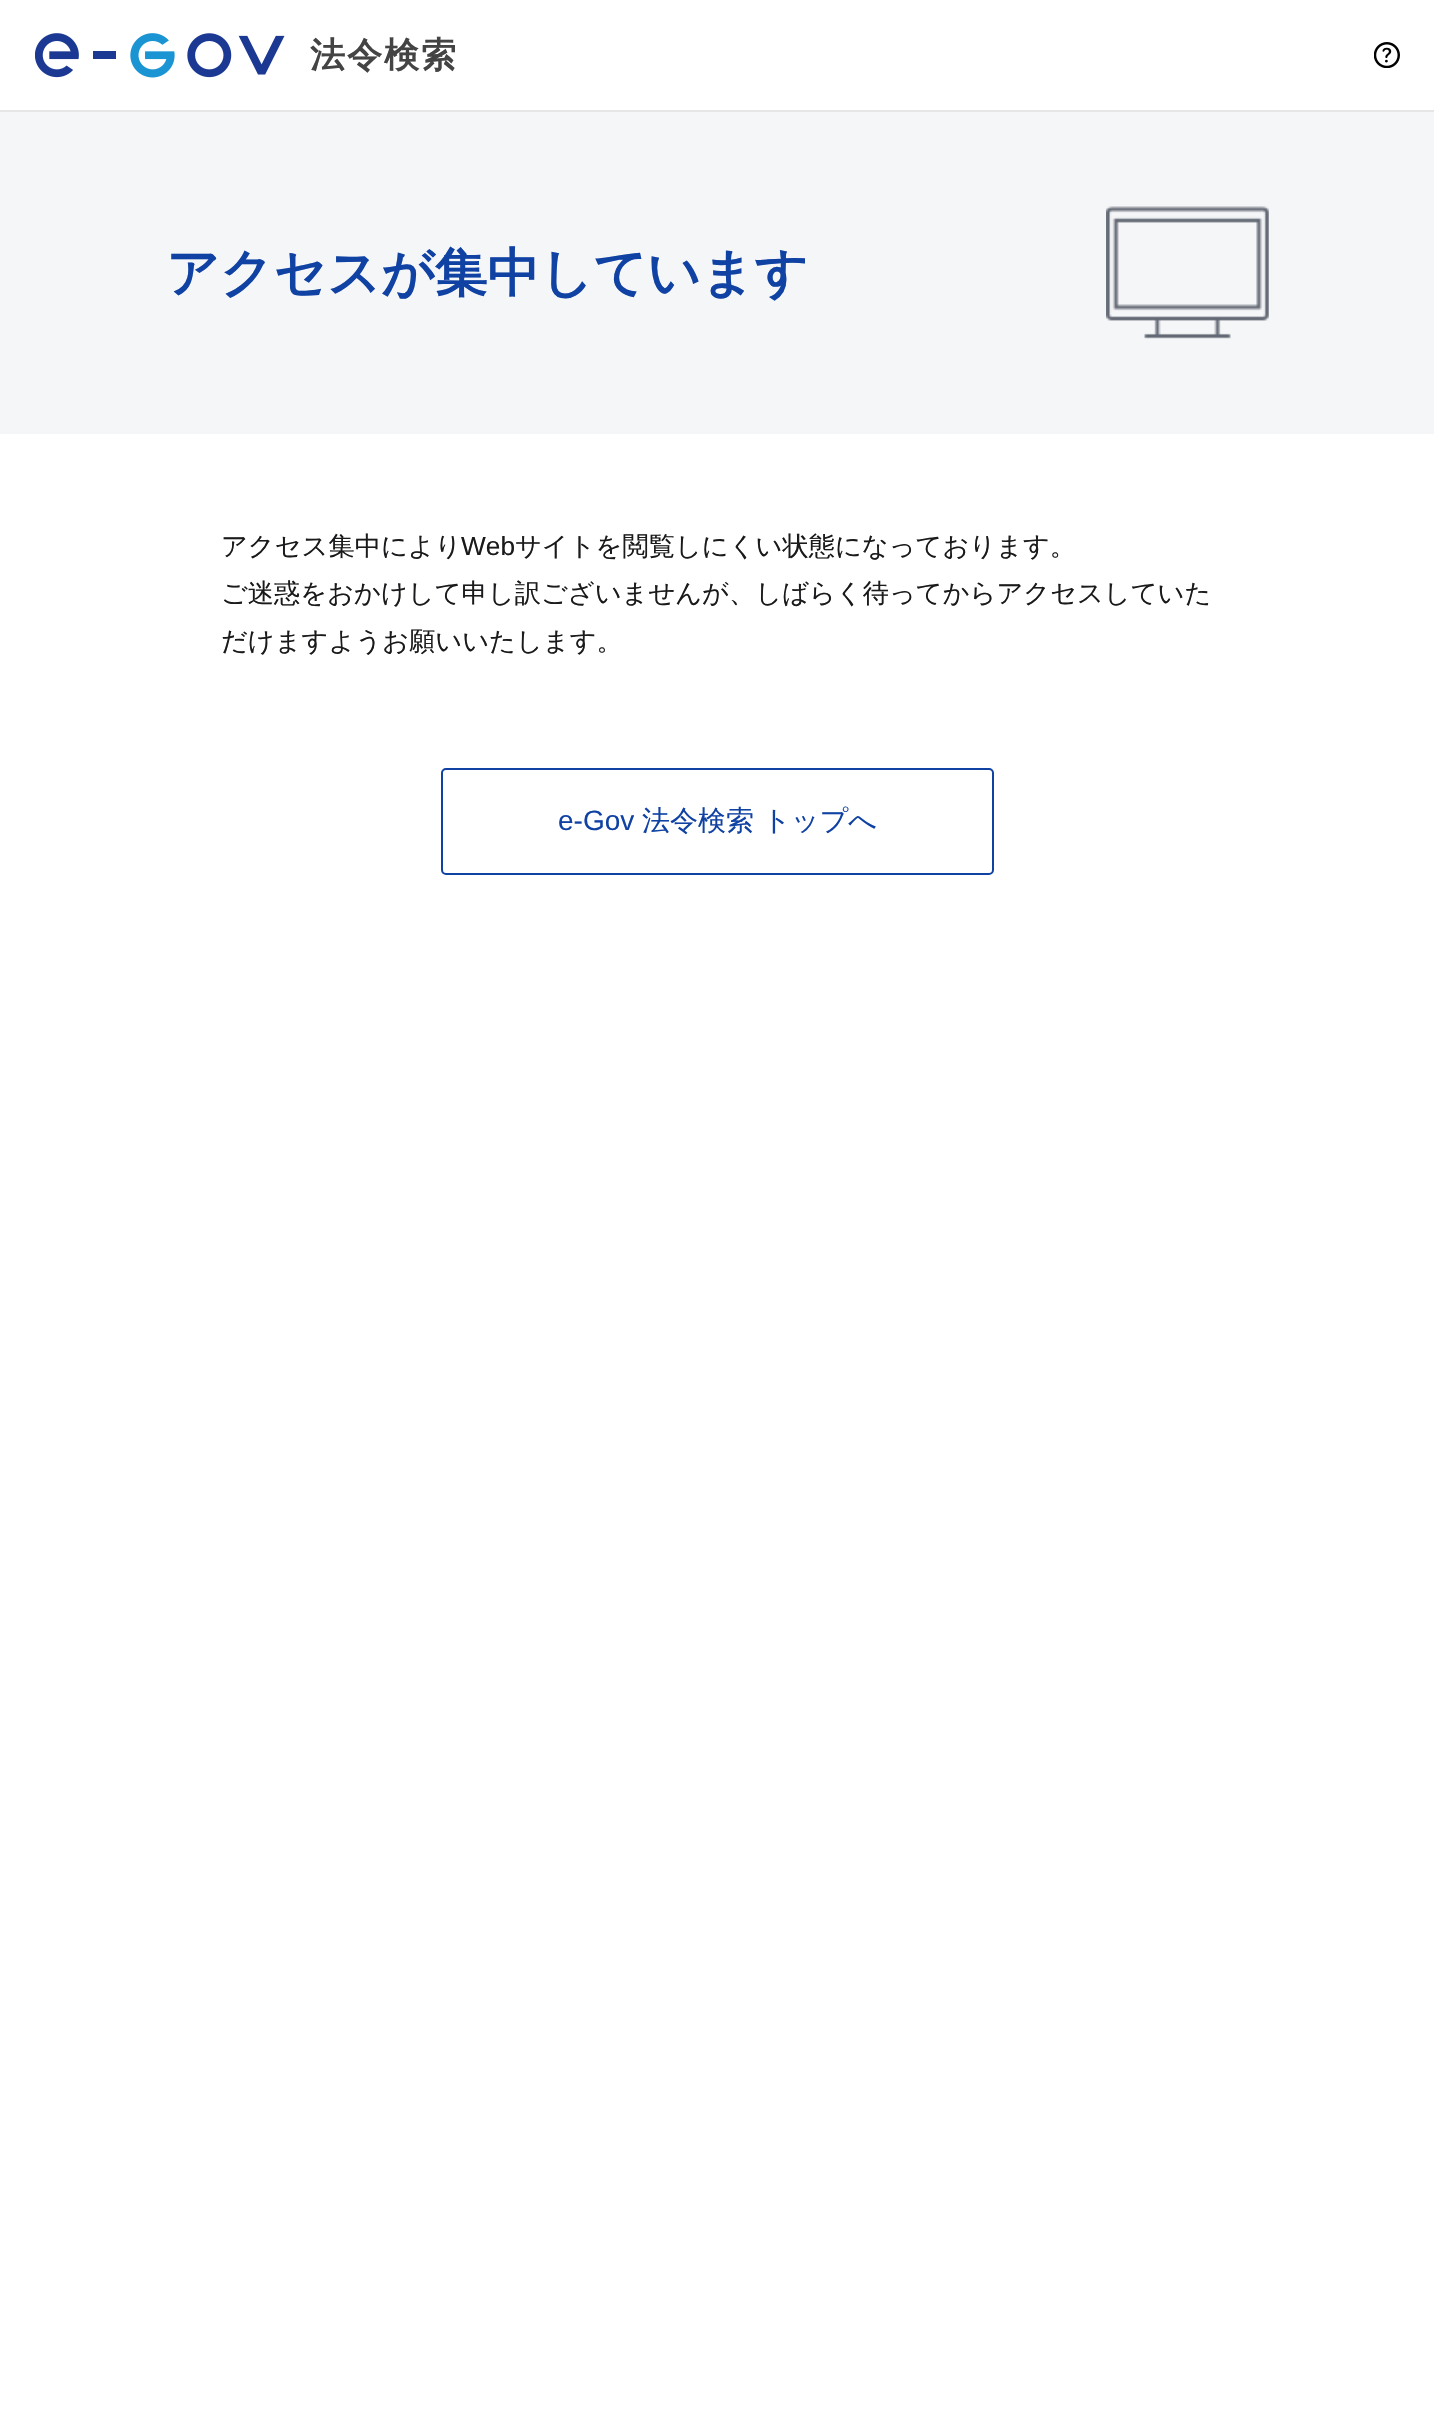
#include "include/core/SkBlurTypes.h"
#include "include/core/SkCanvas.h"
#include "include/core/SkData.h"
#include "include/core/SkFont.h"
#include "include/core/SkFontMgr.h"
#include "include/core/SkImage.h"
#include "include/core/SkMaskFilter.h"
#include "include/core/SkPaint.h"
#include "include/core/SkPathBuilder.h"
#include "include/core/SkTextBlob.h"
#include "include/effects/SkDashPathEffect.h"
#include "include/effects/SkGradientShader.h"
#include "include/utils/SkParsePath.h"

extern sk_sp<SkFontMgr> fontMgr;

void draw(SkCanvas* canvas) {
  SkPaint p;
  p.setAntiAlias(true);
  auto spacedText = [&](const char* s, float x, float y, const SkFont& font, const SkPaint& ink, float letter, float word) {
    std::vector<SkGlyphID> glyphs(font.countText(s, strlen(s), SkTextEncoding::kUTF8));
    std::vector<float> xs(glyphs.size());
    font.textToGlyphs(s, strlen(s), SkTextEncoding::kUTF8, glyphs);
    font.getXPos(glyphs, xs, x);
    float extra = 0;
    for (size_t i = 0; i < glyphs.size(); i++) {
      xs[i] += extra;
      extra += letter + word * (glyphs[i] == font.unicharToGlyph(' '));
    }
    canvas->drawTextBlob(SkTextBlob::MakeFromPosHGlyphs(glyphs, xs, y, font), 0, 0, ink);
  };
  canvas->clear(SK_ColorWHITE);
  p.setColor(SkColorSetRGB(230, 230, 230));
  canvas->drawRect(SkRect::MakeLTRB(0, 110, 1434, 112), p);
  canvas->drawImageRect(SkImages::DeferredFromEncodedData(SkData::MakeFromFileName("images/1.png")), SkRect::MakeLTRB(35, 33, 285, 78), SkSamplingOptions());
  canvas->drawImageRect(SkImages::DeferredFromEncodedData(SkData::MakeFromFileName("images/2.png")), SkRect::MakeLTRB(1374, 42, 1400, 68), SkSamplingOptions());
  p.setColor(SkColorSetRGB(245, 246, 248));
  canvas->drawRect(SkRect::MakeLTRB(0, 112, 1434, 434), p);
  canvas->drawImageRect(SkImages::DeferredFromEncodedData(SkData::MakeFromFileName("images/3.png")), SkRect::MakeLTRB(1106, 206, 1269, 339), SkSamplingOptions());
  p.setStyle(SkPaint::kStroke_Style);
  p.setStrokeWidth(2);
  p.setColor(SkColorSetRGB(16, 66, 164));
  canvas->drawRoundRect(SkRect::MakeLTRB(442, 769, 993, 874), 4, 4, p);
  SkFont font1(fontMgr->matchFamilyStyle("WenQuanYi Zen Hei", SkFontStyle::Bold()), 35);
  font1.setSubpixel(true);
  p.setStyle(SkPaint::kFill_Style);
  p.setColor(SkColorSetRGB(68, 68, 68));
  spacedText("法令検索", 310, 67, font1, p, 2, 0);
  SkFont font2(fontMgr->matchFamilyStyle("WenQuanYi Zen Hei", SkFontStyle::Bold()), 52.5f);
  font2.setSubpixel(true);
  p.setColor(SkColorSetRGB(16, 66, 164));
  canvas->drawString("アクセスが集中しています", 166, 291, font2, p);
  SkFont font3(fontMgr->matchFamilyStyle("WenQuanYi Zen Hei", SkFontStyle(500, SkFontStyle::kNormal_Width, SkFontStyle::kUpright_Slant)), 26.25f);
  font3.setSubpixel(true);
  p.setColor(SkColorSetRGB(26, 26, 28));
  canvas->drawString("アクセス集中により", 221, 555, font3, p);
  SkFont font4(fontMgr->matchFamilyStyle("Liberation Sans", SkFontStyle::Normal()), 26.25f);
  font4.setSubpixel(true);
  canvas->drawString("Web", 461, 555, font4, p);
  canvas->drawString("サイトを閲覧しにくい状態になっております。", 515, 555, font3, p);
  canvas->drawString("ご迷惑をおかけして申し訳ございませんが、しばらく待ってからアクセスしていた", 221, 602, font3, p);
  canvas->drawString("だけますようお願いいたします。", 221, 650, font3, p);
  SkFont font5(fontMgr->matchFamilyStyle("Liberation Sans", SkFontStyle::Normal()), 28);
  font5.setSubpixel(true);
  p.setColor(SkColorSetRGB(16, 66, 164));
  canvas->drawString("e-Gov", 558, 830, font5, p);
  SkFont font6(fontMgr->matchFamilyStyle("WenQuanYi Zen Hei", SkFontStyle(500, SkFontStyle::kNormal_Width, SkFontStyle::kUpright_Slant)), 28);
  font6.setSubpixel(true);
  canvas->drawString("法令検索 トップへ", 642, 830, font6, p);
}
